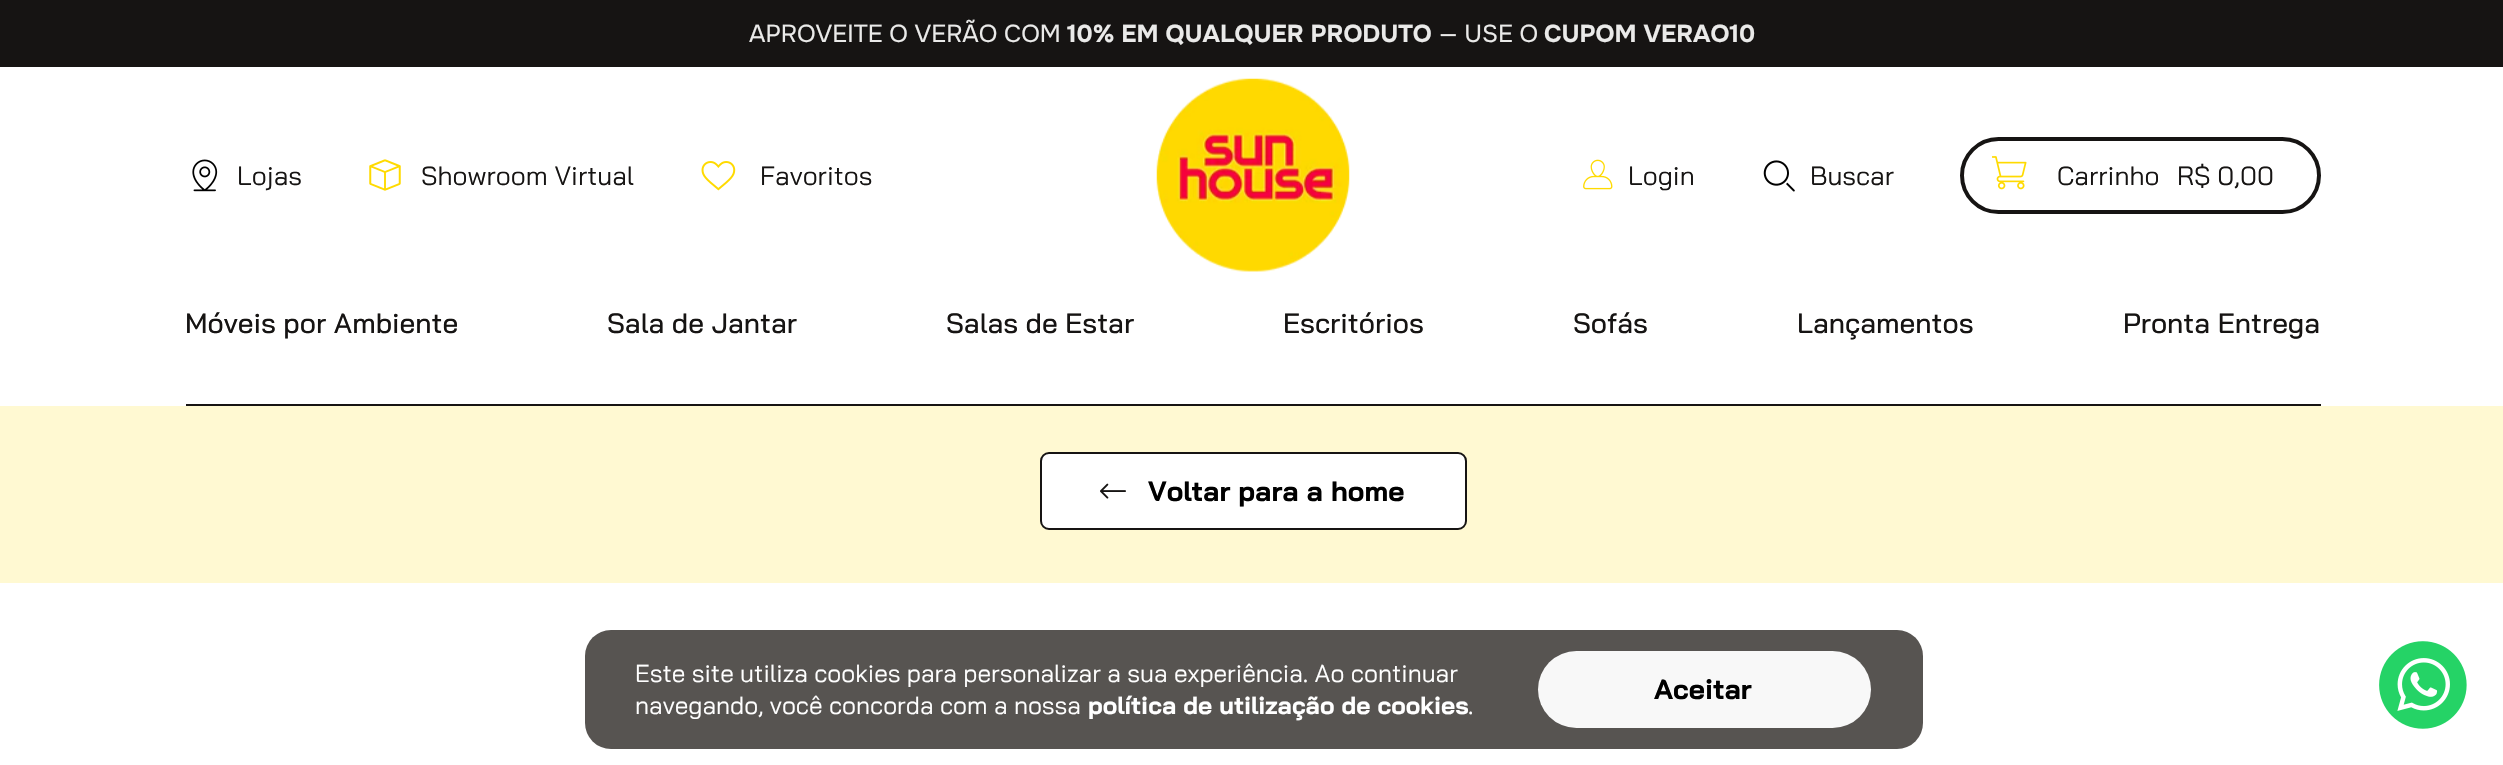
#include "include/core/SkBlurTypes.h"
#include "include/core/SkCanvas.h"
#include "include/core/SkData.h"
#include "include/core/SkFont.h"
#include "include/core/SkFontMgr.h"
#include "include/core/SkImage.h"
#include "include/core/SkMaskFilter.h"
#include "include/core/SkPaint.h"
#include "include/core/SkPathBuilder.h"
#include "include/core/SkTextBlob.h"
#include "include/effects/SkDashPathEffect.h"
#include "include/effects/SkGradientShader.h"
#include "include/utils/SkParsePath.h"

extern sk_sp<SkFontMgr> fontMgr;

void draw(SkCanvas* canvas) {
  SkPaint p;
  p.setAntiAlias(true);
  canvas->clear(SK_ColorWHITE);
  p.setColor(SkColorSetRGB(22, 20, 19));
  canvas->drawRect(SkRect::MakeLTRB(0, 0, 2503, 67), p);
  canvas->drawImageRect(SkImages::DeferredFromEncodedData(SkData::MakeFromFileName("images/1.png")), SkRect::MakeLTRB(192, 159, 218, 192), SkSamplingOptions());
  canvas->drawImageRect(SkImages::DeferredFromEncodedData(SkData::MakeFromFileName("images/2.png")), SkRect::MakeLTRB(369, 159, 401, 191), SkSamplingOptions());
  canvas->drawImageRect(SkImages::DeferredFromEncodedData(SkData::MakeFromFileName("images/3.png")), SkRect::MakeLTRB(701, 161, 736, 191), SkSamplingOptions());
  canvas->drawImageRect(SkImages::DeferredFromEncodedData(SkData::MakeFromFileName("images/4.png")), SkRect::MakeLTRB(1156, 78, 1350, 272), SkSamplingOptions());
  canvas->drawImageRect(SkImages::DeferredFromEncodedData(SkData::MakeFromFileName("images/5.png")), SkRect::MakeLTRB(1583, 159, 1613, 190), SkSamplingOptions());
  canvas->drawImageRect(SkImages::DeferredFromEncodedData(SkData::MakeFromFileName("images/6.png")), SkRect::MakeLTRB(1763, 160, 1795, 192), SkSamplingOptions());
  p.setStyle(SkPaint::kStroke_Style);
  p.setStrokeWidth(4);
  canvas->drawRoundRect(SkRect::MakeLTRB(1962, 139, 2319, 212), 36.5f, 36.5f, p);
  canvas->drawImageRect(SkImages::DeferredFromEncodedData(SkData::MakeFromFileName("images/7.png")), SkRect::MakeLTRB(1992, 156, 2027, 190), SkSamplingOptions());
  p.setStyle(SkPaint::kFill_Style);
  canvas->drawRect(SkRect::MakeLTRB(186, 404, 2321, 406), p);
  p.setColor(SkColorSetRGB(255, 249, 210));
  canvas->drawRect(SkRect::MakeLTRB(0, 406, 2503, 583), p);
  p.setColor(SK_ColorWHITE);
  canvas->drawRoundRect(SkRect::MakeLTRB(1041, 453, 1466, 529), 8, 8, p);
  p.setStyle(SkPaint::kStroke_Style);
  p.setStrokeWidth(2);
  p.setColor(SkColorSetRGB(22, 20, 19));
  canvas->drawRoundRect(SkRect::MakeLTRB(1041, 453, 1466, 529), 8, 8, p);
  canvas->drawImageRect(SkImages::DeferredFromEncodedData(SkData::MakeFromFileName("images/8.png")), SkRect::MakeLTRB(1100, 483, 1126, 499), SkSamplingOptions());
  p.setStyle(SkPaint::kFill_Style);
  p.setColor(SkColorSetRGB(87, 84, 81));
  canvas->drawRoundRect(SkRect::MakeLTRB(585, 630, 1923, 749), 26, 26, p);
  p.setColor(SkColorSetRGB(248, 248, 248));
  canvas->drawRoundRect(SkRect::MakeLTRB(1538, 651, 1871, 728), 38.5f, 38.5f, p);
  canvas->drawImageRect(SkImages::DeferredFromEncodedData(SkData::MakeFromFileName("images/9.png")), SkRect::MakeLTRB(2379, 641, 2467, 729), SkSamplingOptions());
  SkFont font1(fontMgr->matchFamilyStyle("Onest", SkFontStyle::Normal()), 24.5f);
  font1.setSubpixel(true);
  p.setColor(SkColorSetRGB(234, 234, 233));
  canvas->drawString("APROVEITE O VERÃO COM", 749, 42, font1, p);
  SkFont font2(fontMgr->matchFamilyStyle("Onest", SkFontStyle::Bold()), 24.5f);
  font2.setSubpixel(true);
  canvas->drawString("10% EM QUALQUER PRODUTO", 1067, 42, font2, p);
  canvas->drawString("— USE O", 1439, 42, font1, p);
  canvas->drawString("CUPOM VERAO10", 1544, 42, font2, p);
  SkFont font3(fontMgr->matchFamilyStyle("Bai Jamjuree", SkFontStyle::Normal()), 26.25f);
  font3.setSubpixel(true);
  p.setColor(SkColorSetRGB(22, 20, 19));
  canvas->drawString("Lojas", 237, 185, font3, p);
  canvas->drawString("Showroom Virtual", 421, 185, font3, p);
  canvas->drawString("Favoritos", 760, 185, font3, p);
  canvas->drawString("Login", 1628, 185, font3, p);
  canvas->drawString("Buscar", 1810, 185, font3, p);
  canvas->drawString("Carrinho", 2057, 185, font3, p);
  canvas->drawString("R$ 0,00", 2177, 185, font3, p);
  SkFont font4(fontMgr->matchFamilyStyle("Bai Jamjuree", SkFontStyle(500, SkFontStyle::kNormal_Width, SkFontStyle::kUpright_Slant)), 28);
  font4.setSubpixel(true);
  canvas->drawString("Móveis por Ambiente", 185, 333, font4, p);
  canvas->drawString("Sala de Jantar", 607, 333, font4, p);
  canvas->drawString("Salas de Estar", 946, 333, font4, p);
  canvas->drawString("Escritórios", 1283, 333, font4, p);
  canvas->drawString("Sofás", 1573, 333, font4, p);
  canvas->drawString("Lançamentos", 1797, 333, font4, p);
  canvas->drawString("Pronta Entrega", 2123, 333, font4, p);
  SkFont font5(fontMgr->matchFamilyStyle("Bai Jamjuree", SkFontStyle::Bold()), 28);
  font5.setSubpixel(true);
  p.setColor(SK_ColorBLACK);
  canvas->drawString("Voltar para a home", 1148, 501, font5, p);
  SkFont font6(fontMgr->matchFamilyStyle("Bai Jamjuree", SkFontStyle::Normal()), 24.5f);
  font6.setSubpixel(true);
  p.setColor(SK_ColorWHITE);
  canvas->drawString("Este site utiliza cookies para personalizar a sua experiência. Ao continuar", 635, 682, font6, p);
  canvas->drawString("navegando, você concorda com a nossa", 635, 714, font6, p);
  SkFont font7(fontMgr->matchFamilyStyle("Bai Jamjuree", SkFontStyle::Bold()), 24.5f);
  font7.setSubpixel(true);
  canvas->drawString("política de utilização de cookies", 1088, 714, font7, p);
  canvas->drawString(".", 1468, 714, font6, p);
  p.setColor(SK_ColorBLACK);
  canvas->drawString("Aceitar", 1654, 699, font5, p);
}
